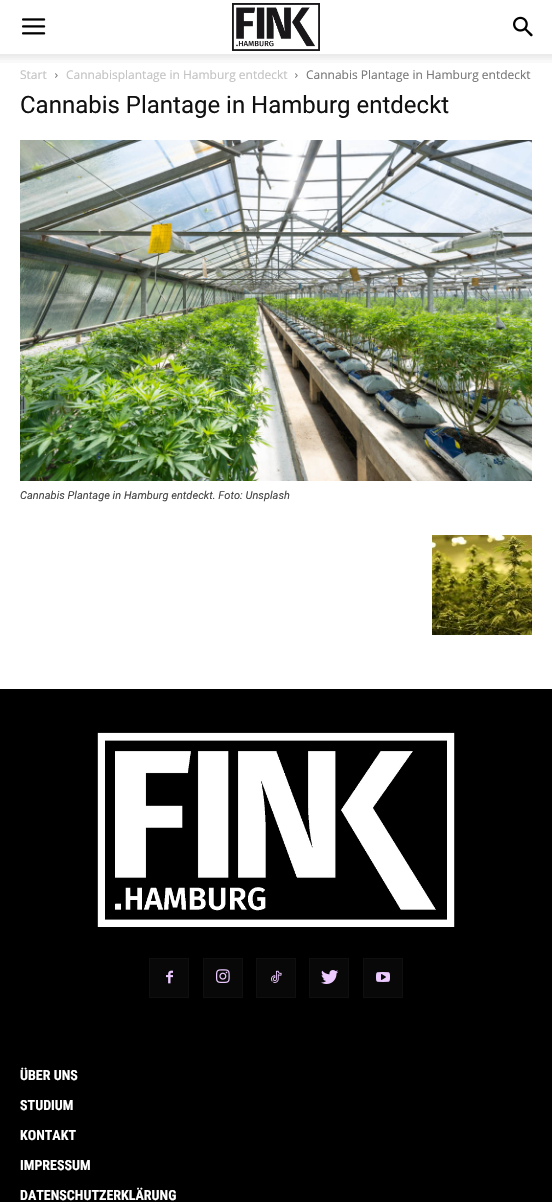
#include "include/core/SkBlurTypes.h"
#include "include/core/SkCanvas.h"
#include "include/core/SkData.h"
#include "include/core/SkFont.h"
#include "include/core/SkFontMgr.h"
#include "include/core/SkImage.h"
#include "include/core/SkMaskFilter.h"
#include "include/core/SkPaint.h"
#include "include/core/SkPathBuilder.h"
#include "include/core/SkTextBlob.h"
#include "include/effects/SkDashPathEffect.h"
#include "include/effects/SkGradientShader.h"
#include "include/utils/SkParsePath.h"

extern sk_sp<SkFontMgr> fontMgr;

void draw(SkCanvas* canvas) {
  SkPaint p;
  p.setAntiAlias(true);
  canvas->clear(SK_ColorWHITE);
  canvas->drawImageRect(SkImages::DeferredFromEncodedData(SkData::MakeFromFileName("images/1.png")), SkRect::MakeLTRB(22, 18, 46, 35), SkSamplingOptions());
  canvas->drawImageRect(SkImages::DeferredFromEncodedData(SkData::MakeFromFileName("images/2.png")), SkRect::MakeLTRB(232, 3, 320, 51), SkSamplingOptions());
  canvas->drawImageRect(SkImages::DeferredFromEncodedData(SkData::MakeFromFileName("images/3.png")), SkRect::MakeLTRB(513, 16, 533, 37), SkSamplingOptions());
  canvas->drawImageRect(SkImages::DeferredFromEncodedData(SkData::MakeFromFileName("images/4.png")), SkRect::MakeLTRB(0, 54, 552, 63), SkSamplingOptions());
  canvas->drawImageRect(SkImages::DeferredFromEncodedData(SkData::MakeFromFileName("images/5.png")), SkRect::MakeLTRB(55, 73, 58, 78), SkSamplingOptions());
  canvas->drawImageRect(SkImages::DeferredFromEncodedData(SkData::MakeFromFileName("images/5.png")), SkRect::MakeLTRB(295, 73, 298, 78), SkSamplingOptions());
  canvas->drawImageRect(SkImages::DeferredFromEncodedData(SkData::MakeFromFileName("images/6.png")), SkRect::MakeLTRB(20, 140, 532, 481), SkSamplingOptions());
  canvas->drawImageRect(SkImages::DeferredFromEncodedData(SkData::MakeFromFileName("images/7.png")), SkRect::MakeLTRB(432, 535, 532, 635), SkSamplingOptions());
  p.setColor(SK_ColorBLACK);
  canvas->drawRect(SkRect::MakeLTRB(0, 689, 552, 1202), p);
  canvas->drawImageRect(SkImages::DeferredFromEncodedData(SkData::MakeFromFileName("images/8.png")), SkRect::MakeLTRB(97, 732, 455, 927), SkSamplingOptions());
  p.setColor(SkColorSetRGB(8, 8, 8));
  canvas->drawRect(SkRect::MakeLTRB(150, 959, 188, 997), p);
  canvas->drawImageRect(SkImages::DeferredFromEncodedData(SkData::MakeFromFileName("images/9.png")), SkRect::MakeLTRB(166, 970, 173, 984), SkSamplingOptions());
  p.setStyle(SkPaint::kStroke_Style);
  p.setStrokeWidth(1);
  p.setColor(SkColorSetRGB(15, 15, 15));
  canvas->drawRect(SkRect::MakeLTRB(149.5f, 958.5f, 188.5f, 997.5f), p);
  p.setStyle(SkPaint::kFill_Style);
  p.setColor(SkColorSetRGB(8, 8, 8));
  canvas->drawRect(SkRect::MakeLTRB(204, 959, 242, 997), p);
  canvas->drawImageRect(SkImages::DeferredFromEncodedData(SkData::MakeFromFileName("images/10.png")), SkRect::MakeLTRB(216, 969, 230, 983), SkSamplingOptions());
  p.setStyle(SkPaint::kStroke_Style);
  p.setColor(SkColorSetRGB(15, 15, 15));
  canvas->drawRect(SkRect::MakeLTRB(203.5f, 958.5f, 242.5f, 997.5f), p);
  p.setStyle(SkPaint::kFill_Style);
  p.setColor(SkColorSetRGB(8, 8, 8));
  canvas->drawRect(SkRect::MakeLTRB(257, 959, 295, 997), p);
  canvas->drawImageRect(SkImages::DeferredFromEncodedData(SkData::MakeFromFileName("images/11.png")), SkRect::MakeLTRB(271, 970, 282, 983), SkSamplingOptions());
  p.setStyle(SkPaint::kStroke_Style);
  p.setColor(SkColorSetRGB(15, 15, 15));
  canvas->drawRect(SkRect::MakeLTRB(256.5f, 958.5f, 295.5f, 997.5f), p);
  p.setStyle(SkPaint::kFill_Style);
  p.setColor(SkColorSetRGB(8, 8, 8));
  canvas->drawRect(SkRect::MakeLTRB(310, 959, 348, 997), p);
  canvas->drawImageRect(SkImages::DeferredFromEncodedData(SkData::MakeFromFileName("images/12.png")), SkRect::MakeLTRB(321, 970, 339, 984), SkSamplingOptions());
  p.setStyle(SkPaint::kStroke_Style);
  p.setColor(SkColorSetRGB(15, 15, 15));
  canvas->drawRect(SkRect::MakeLTRB(309.5f, 958.5f, 348.5f, 997.5f), p);
  p.setStyle(SkPaint::kFill_Style);
  p.setColor(SkColorSetRGB(8, 8, 8));
  canvas->drawRect(SkRect::MakeLTRB(364, 959, 402, 997), p);
  canvas->drawImageRect(SkImages::DeferredFromEncodedData(SkData::MakeFromFileName("images/13.png")), SkRect::MakeLTRB(376, 972, 390, 982), SkSamplingOptions());
  p.setStyle(SkPaint::kStroke_Style);
  p.setColor(SkColorSetRGB(15, 15, 15));
  canvas->drawRect(SkRect::MakeLTRB(363.5f, 958.5f, 402.5f, 997.5f), p);
  SkFont font1(fontMgr->matchFamilyStyle("Open Sans", SkFontStyle::Normal()), 12);
  font1.setSubpixel(true);
  p.setStyle(SkPaint::kFill_Style);
  p.setColor(SkColorSetRGB(195, 195, 195));
  canvas->drawString("Start", 20, 79, font1, p);
  canvas->drawString("Cannabisplantage in Hamburg entdeckt", 66, 79, font1, p);
  p.setColor(SkColorSetRGB(119, 119, 119));
  canvas->drawString("Cannabis Plantage in Hamburg entdeckt", 306, 79, font1, p);
  SkFont font2(fontMgr->matchFamilyStyle("Roboto", SkFontStyle::Normal()), 24);
  font2.setSubpixel(true);
  p.setColor(SkColorSetRGB(17, 17, 17));
  canvas->drawString("Cannabis Plantage in Hamburg entdeckt", 20, 113, font2, p);
  SkFont font3(fontMgr->matchFamilyStyle("Roboto", SkFontStyle::Italic()), 11);
  font3.setSubpixel(true);
  p.setColor(SkColorSetRGB(68, 68, 68));
  canvas->drawString("Cannabis Plantage in Hamburg entdeckt. Foto: Unsplash", 20, 499, font3, p);
  SkFont font4(fontMgr->matchFamilyStyle("Roboto Condensed", SkFontStyle::Bold()), 14);
  font4.setSubpixel(true);
  p.setColor(SK_ColorWHITE);
  canvas->drawString("ÜBER UNS", 20, 1080, font4, p);
  canvas->drawString("STUDIUM", 20, 1110, font4, p);
  canvas->drawString("KONTAKT", 20, 1140, font4, p);
  canvas->drawString("IMPRESSUM", 20, 1170, font4, p);
  canvas->drawString("DATENSCHUTZERKLÄRUNG", 20, 1200, font4, p);
}
